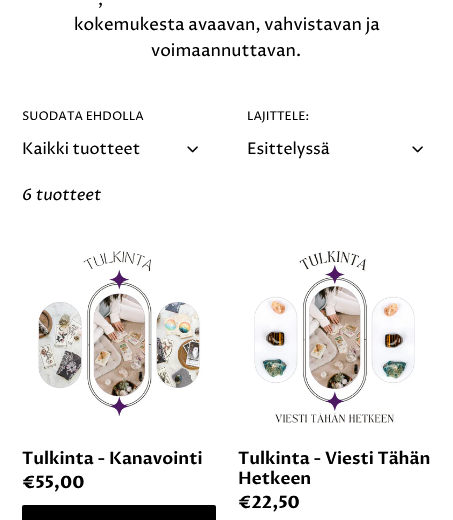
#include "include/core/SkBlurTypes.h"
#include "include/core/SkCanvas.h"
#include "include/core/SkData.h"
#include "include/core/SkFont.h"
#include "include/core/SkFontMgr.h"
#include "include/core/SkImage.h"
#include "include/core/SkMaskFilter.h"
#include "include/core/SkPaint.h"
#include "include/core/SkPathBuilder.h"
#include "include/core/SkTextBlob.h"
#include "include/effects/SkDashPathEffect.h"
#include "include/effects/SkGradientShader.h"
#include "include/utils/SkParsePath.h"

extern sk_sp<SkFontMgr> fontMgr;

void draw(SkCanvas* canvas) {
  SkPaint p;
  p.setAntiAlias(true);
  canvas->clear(SK_ColorWHITE);
  canvas->drawImageRect(SkImages::DeferredFromEncodedData(SkData::MakeFromFileName("images/1.png")), SkRect::MakeLTRB(187, 146, 198, 153), SkSamplingOptions());
  canvas->drawImageRect(SkImages::DeferredFromEncodedData(SkData::MakeFromFileName("images/1.png")), SkRect::MakeLTRB(412, 146, 423, 153), SkSamplingOptions());
  canvas->drawImageRect(SkImages::DeferredFromEncodedData(SkData::MakeFromFileName("images/2.png")), SkRect::MakeLTRB(37, 251, 201, 417), SkSamplingOptions());
  p.setColor(SK_ColorBLACK);
  canvas->drawRoundRect(SkRect::MakeLTRB(22, 505, 216, 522), 2, 2, p);
  canvas->drawImageRect(SkImages::DeferredFromEncodedData(SkData::MakeFromFileName("images/3.png")), SkRect::MakeLTRB(254, 251, 415, 423), SkSamplingOptions());
  SkFont font1(fontMgr->matchFamilyStyle("Proza Libre", SkFontStyle::Normal()), 17);
  font1.setSubpixel(true);
  canvas->drawString(",", 98, 5, font1, p);
  canvas->drawString("kokemukesta avaavan, vahvistavan ja", 74, 30, font1, p);
  canvas->drawString("voimaannuttavan.", 151, 56, font1, p);
  SkFont font2(fontMgr->matchFamilyStyle("Proza Libre", SkFontStyle::Normal()), 12);
  font2.setSubpixel(true);
  canvas->drawString("SUODATA EHDOLLA", 22, 120, font2, p);
  SkFont font3(fontMgr->matchFamilyStyle("Proza Libre", SkFontStyle::Normal()), 16);
  font3.setSubpixel(true);
  canvas->drawString("Kaikki tuotteet", 22, 154, font3, p);
  canvas->drawString("LAJITTELE:", 247, 120, font2, p);
  canvas->drawString("Esittelyssä", 247, 154, font3, p);
  SkFont font4(fontMgr->matchFamilyStyle("Proza Libre", SkFontStyle::Italic()), 16);
  font4.setSubpixel(true);
  canvas->drawString("6 tuotteet", 22, 200, font4, p);
  SkFont font5(fontMgr->matchFamilyStyle("Proza Libre", SkFontStyle(600, SkFontStyle::kNormal_Width, SkFontStyle::kUpright_Slant)), 17);
  font5.setSubpixel(true);
  canvas->drawString("Tulkinta - Kanavointi", 22, 464, font5, p);
  SkFont font6(fontMgr->matchFamilyStyle("Proza Libre", SkFontStyle::Bold()), 17);
  font6.setSubpixel(true);
  canvas->drawString("€55,00", 22, 488, font6, p);
  canvas->drawString("Tulkinta - Viesti Tähän", 238, 464, font5, p);
  canvas->drawString("Hetkeen", 238, 484, font5, p);
  canvas->drawString("€22,50", 238, 508, font6, p);
}
